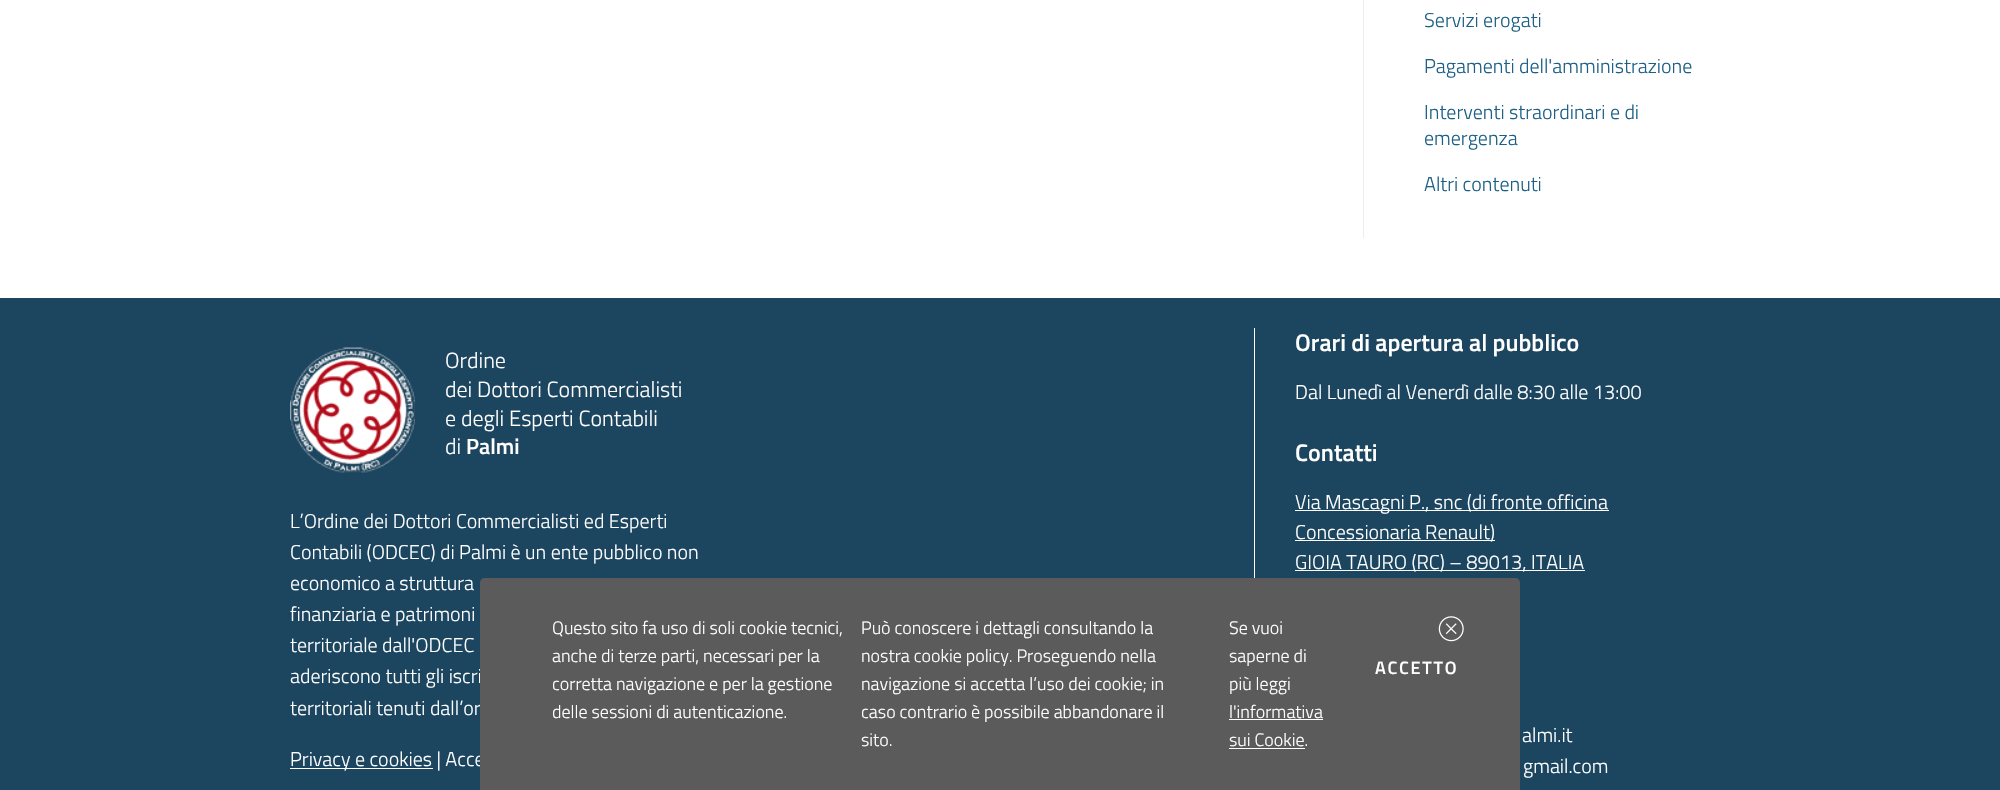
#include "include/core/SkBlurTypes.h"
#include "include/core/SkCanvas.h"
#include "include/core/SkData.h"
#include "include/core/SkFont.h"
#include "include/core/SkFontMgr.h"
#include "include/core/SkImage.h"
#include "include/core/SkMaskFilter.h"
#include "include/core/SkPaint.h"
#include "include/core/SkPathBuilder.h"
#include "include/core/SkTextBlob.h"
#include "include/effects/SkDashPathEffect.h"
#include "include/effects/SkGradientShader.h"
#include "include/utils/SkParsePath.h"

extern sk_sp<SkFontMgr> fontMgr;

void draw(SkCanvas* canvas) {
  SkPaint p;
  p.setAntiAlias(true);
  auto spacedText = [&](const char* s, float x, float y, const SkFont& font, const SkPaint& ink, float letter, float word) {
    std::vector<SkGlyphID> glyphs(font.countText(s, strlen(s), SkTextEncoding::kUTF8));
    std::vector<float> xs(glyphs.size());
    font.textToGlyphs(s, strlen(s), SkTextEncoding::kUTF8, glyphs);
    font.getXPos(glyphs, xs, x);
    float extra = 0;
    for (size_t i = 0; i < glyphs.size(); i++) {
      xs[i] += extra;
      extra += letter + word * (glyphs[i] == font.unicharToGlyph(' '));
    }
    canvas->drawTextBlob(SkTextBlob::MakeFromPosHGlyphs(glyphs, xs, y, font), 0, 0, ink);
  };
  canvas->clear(SK_ColorWHITE);
  p.setColor(SkColorSetRGB(237, 237, 237));
  canvas->drawRect(SkRect::MakeLTRB(1363, 0, 1364, 238), p);
  p.setColor(SkColorSetRGB(28, 69, 95));
  canvas->drawRect(SkRect::MakeLTRB(0, 298, 2000, 790), p);
  canvas->drawImageRect(SkImages::DeferredFromEncodedData(SkData::MakeFromFileName("images/1.png")), SkRect::MakeLTRB(290, 347, 415, 473), SkSamplingOptions());
  p.setColor(SK_ColorWHITE);
  canvas->drawRect(SkRect::MakeLTRB(290, 768, 433, 769), p);
  canvas->drawRect(SkRect::MakeLTRB(1254, 328, 1255, 578), p);
  canvas->drawRect(SkRect::MakeLTRB(1295, 510, 1609, 511), p);
  canvas->drawRect(SkRect::MakeLTRB(1295, 540, 1495, 541), p);
  canvas->drawRect(SkRect::MakeLTRB(1295, 570, 1585, 571), p);
  SkFont font1(fontMgr->matchFamilyStyle("Titillium Web", SkFontStyle(300, SkFontStyle::kNormal_Width, SkFontStyle::kUpright_Slant)), 20);
  font1.setSubpixel(true);
  p.setColor(SkColorSetRGB(27, 96, 135));
  canvas->drawString("Servizi erogati", 1424, 27, font1, p);
  canvas->drawString("Pagamenti dell'amministrazione", 1424, 73, font1, p);
  canvas->drawString("Interventi straordinari e di", 1424, 119, font1, p);
  canvas->drawString("emergenza", 1424, 145, font1, p);
  canvas->drawString("Altri contenuti", 1424, 191, font1, p);
  SkFont font2(fontMgr->matchFamilyStyle("Titillium Web", SkFontStyle(300, SkFontStyle::kNormal_Width, SkFontStyle::kUpright_Slant)), 22);
  font2.setSubpixel(true);
  p.setColor(SK_ColorWHITE);
  canvas->drawString("Ordine", 445, 368, font2, p);
  canvas->drawString("dei Dottori Commercialisti", 445, 397, font2, p);
  canvas->drawString("e degli Esperti Contabili", 445, 426, font2, p);
  canvas->drawString("di", 445, 454, font2, p);
  SkFont font3(fontMgr->matchFamilyStyle("Titillium Web", SkFontStyle(600, SkFontStyle::kNormal_Width, SkFontStyle::kUpright_Slant)), 22);
  font3.setSubpixel(true);
  canvas->drawString("Palmi", 466, 454, font3, p);
  canvas->drawString("L’Ordine dei Dottori Commercialisti ed Esperti", 290, 528, font1, p);
  canvas->drawString("Contabili (ODCEC) di Palmi è un ente pubblico non", 290, 559, font1, p);
  canvas->drawString("economico a struttura", 290, 590, font1, p);
  canvas->drawString("finanziaria e patrimoni", 290, 621, font1, p);
  canvas->drawString("territoriale dall'ODCEC", 290, 652, font1, p);
  canvas->drawString("aderiscono tutti gli iscri", 290, 683, font1, p);
  canvas->drawString("territoriali tenuti dall’or", 290, 715, font1, p);
  canvas->drawString("Privacy e cookies | Acce", 290, 766, font1, p);
  SkFont font4(fontMgr->matchFamilyStyle("Titillium Web", SkFontStyle(600, SkFontStyle::kNormal_Width, SkFontStyle::kUpright_Slant)), 24);
  font4.setSubpixel(true);
  canvas->drawString("Orari di apertura al pubblico", 1295, 351, font4, p);
  canvas->drawString("Dal Lunedì al Venerdì dalle 8:30 alle 13:00", 1295, 399, font1, p);
  canvas->drawString("Contatti", 1295, 461, font4, p);
  canvas->drawString("Via Mascagni P., snc (di fronte officina", 1295, 509, font1, p);
  canvas->drawString("Concessionaria Renault)", 1295, 539, font1, p);
  canvas->drawString("GIOIA TAURO (RC) – 89013, ITALIA", 1295, 569, font1, p);
  canvas->drawString("almi.it", 1522, 742, font1, p);
  canvas->drawString("gmail.com", 1523, 773, font1, p);
  p.setColor(SkColorSetRGB(91, 91, 91));
  canvas->drawPath(SkPathBuilder().moveTo(485, 578).lineTo(1515, 578).cubicTo(1518, 578, 1520, 580, 1520, 583).lineTo(1520, 790).lineTo(480, 790).lineTo(480, 583).cubicTo(480, 580, 482, 578, 485, 578).close().detach(), p);
  SkFont font5(fontMgr->matchFamilyStyle("Titillium Web", SkFontStyle(300, SkFontStyle::kNormal_Width, SkFontStyle::kUpright_Slant)), 18);
  font5.setSubpixel(true);
  p.setColor(SK_ColorWHITE);
  canvas->drawString("Questo sito fa uso di soli cookie tecnici,", 552, 634, font5, p);
  canvas->drawString("anche di terze parti, necessari per la", 552, 662, font5, p);
  canvas->drawString("corretta navigazione e per la gestione", 552, 690, font5, p);
  canvas->drawString("delle sessioni di autenticazione.", 552, 718, font5, p);
  canvas->drawString("Può conoscere i dettagli consultando la", 861, 634, font5, p);
  canvas->drawString("nostra cookie policy. Proseguendo nella", 861, 662, font5, p);
  canvas->drawString("navigazione si accetta l’uso dei cookie; in", 861, 690, font5, p);
  canvas->drawString("caso contrario è possibile abbandonare il", 861, 718, font5, p);
  canvas->drawString("sito.", 861, 746, font5, p);
  canvas->drawString("Se vuoi", 1229, 634, font5, p);
  canvas->drawString("saperne di", 1229, 662, font5, p);
  canvas->drawString("più leggi", 1229, 690, font5, p);
  canvas->drawString("l'informativa", 1229, 718, font5, p);
  canvas->drawRect(SkRect::MakeLTRB(1229, 719, 1323, 720), p);
  canvas->drawString("sui Cookie.", 1229, 746, font5, p);
  canvas->drawRect(SkRect::MakeLTRB(1229, 748, 1305, 749), p);
  canvas->drawImageRect(SkImages::DeferredFromEncodedData(SkData::MakeFromFileName("images/2.png")), SkRect::MakeLTRB(1438, 616, 1464, 642), SkSamplingOptions());
  SkFont font6(fontMgr->matchFamilyStyle("Titillium Web", SkFontStyle(600, SkFontStyle::kNormal_Width, SkFontStyle::kUpright_Slant)), 18);
  font6.setSubpixel(true);
  spacedText("ACCETTO", 1375, 674, font6, p, 1.75f, 0);
}
